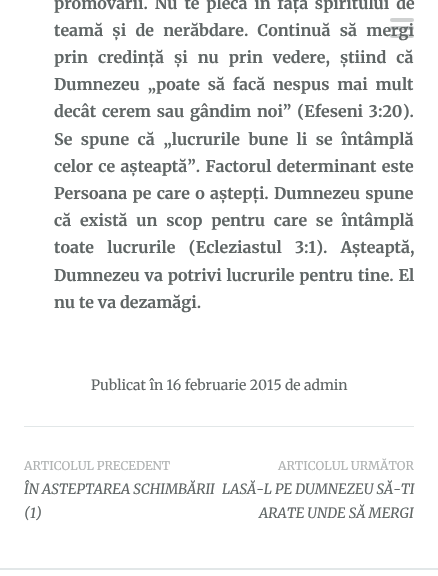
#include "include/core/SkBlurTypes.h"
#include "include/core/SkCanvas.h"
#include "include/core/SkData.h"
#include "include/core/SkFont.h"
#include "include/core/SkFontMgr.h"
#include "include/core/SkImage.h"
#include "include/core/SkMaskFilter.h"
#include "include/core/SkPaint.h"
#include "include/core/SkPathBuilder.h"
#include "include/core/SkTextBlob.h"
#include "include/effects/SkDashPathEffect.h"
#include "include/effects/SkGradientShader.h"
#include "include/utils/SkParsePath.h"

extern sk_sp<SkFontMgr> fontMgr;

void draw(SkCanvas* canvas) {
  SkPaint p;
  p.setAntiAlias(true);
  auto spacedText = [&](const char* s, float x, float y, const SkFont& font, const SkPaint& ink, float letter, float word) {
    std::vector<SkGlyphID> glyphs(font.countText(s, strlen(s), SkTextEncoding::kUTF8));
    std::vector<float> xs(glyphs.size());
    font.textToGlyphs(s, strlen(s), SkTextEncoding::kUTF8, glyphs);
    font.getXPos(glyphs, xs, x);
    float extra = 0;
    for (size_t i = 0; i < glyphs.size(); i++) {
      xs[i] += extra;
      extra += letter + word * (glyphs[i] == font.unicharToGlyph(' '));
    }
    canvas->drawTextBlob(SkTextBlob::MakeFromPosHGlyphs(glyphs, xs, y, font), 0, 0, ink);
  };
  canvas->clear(SK_ColorWHITE);
  p.setColor(SkColorSetRGB(226, 231, 232));
  canvas->drawRect(SkRect::MakeLTRB(24, 426, 414, 427), p);
  canvas->drawRect(SkRect::MakeLTRB(0, 568, 438, 570), p);
  p.setColor(SkColorSetRGB(207, 209, 209));
  canvas->drawRoundRect(SkRect::MakeLTRB(390, 18, 414, 22), 2, 2, p);
  SkFont font1(fontMgr->matchFamilyStyle("Merriweather", SkFontStyle::Bold()), 16);
  font1.setSubpixel(true);
  p.setColor(SkColorSetRGB(96, 102, 102));
  spacedText("promovării. Nu te pleca în fața spiritului de", 54, 9, font1, p, 0, 3);
  spacedText("teamă și de nerăbdare. Continuă să mergi", 54, 36, font1, p, 0, 5.5f);
  spacedText("prin credință și nu prin vedere, știind că", 54, 63, font1, p, 0, 6.25f);
  spacedText("Dumnezeu „poate să facă nespus mai mult", 54, 90, font1, p, 0, 4);
  spacedText("decât cerem sau gândim noi” (Efeseni 3:20).", 54, 117, font1, p, 0, 2);
  spacedText("Se spune că „lucrurile bune li se întâmplă", 54, 145, font1, p, 0, 4.75f);
  spacedText("celor ce așteaptă”. Factorul determinant este", 54, 172, font1, p, 0, 1.5f);
  spacedText("Persoana pe care o aștepți. Dumnezeu spune", 54, 199, font1, p, 0, 1.5f);
  spacedText("că există un scop pentru care se întâmplă", 54, 226, font1, p, 0, 5);
  spacedText("toate lucrurile (Ecleziastul 3:1). Așteaptă,", 54, 253, font1, p, 0, 9.5f);
  spacedText("Dumnezeu va potrivi lucrurile pentru tine. El", 54, 281, font1, p, 0, 1);
  canvas->drawString("nu te va dezamăgi.", 54, 308, font1, p);
  SkFont font2(fontMgr->matchFamilyStyle("Merriweather", SkFontStyle::Normal()), 14);
  font2.setSubpixel(true);
  canvas->drawString("Publicat în 16 februarie 2015 de admin", 91, 390, font2, p);
  SkFont font3(fontMgr->matchFamilyStyle("Merriweather", SkFontStyle::Normal()), 12);
  font3.setSubpixel(true);
  p.setColor(SkColorSetRGB(176, 179, 179));
  canvas->drawString("ARTICOLUL PRECEDENT", 24, 470, font3, p);
  SkFont font4(fontMgr->matchFamilyStyle("Merriweather", SkFontStyle::Italic()), 14);
  font4.setSubpixel(true);
  p.setColor(SkColorSetRGB(96, 102, 102));
  canvas->drawString("ÎN ASTEPTAREA SCHIMBĂRII", 24, 494, font4, p);
  canvas->drawString("(1)", 24, 518, font4, p);
  p.setColor(SkColorSetRGB(176, 179, 179));
  canvas->drawString("ARTICOLUL URMĂTOR", 278, 470, font3, p);
  p.setColor(SkColorSetRGB(96, 102, 102));
  canvas->drawString("LASĂ-L PE DUMNEZEU SĂ-TI", 222, 494, font4, p);
  canvas->drawString("ARATE UNDE SĂ MERGI", 259, 518, font4, p);
  p.setColor(SkColorSetARGB(77, 96, 102, 102));
  canvas->drawRoundRect(SkRect::MakeLTRB(390, 26, 414, 30), 2, 2, p);
  canvas->drawRoundRect(SkRect::MakeLTRB(390, 34, 414, 38), 2, 2, p);
}
